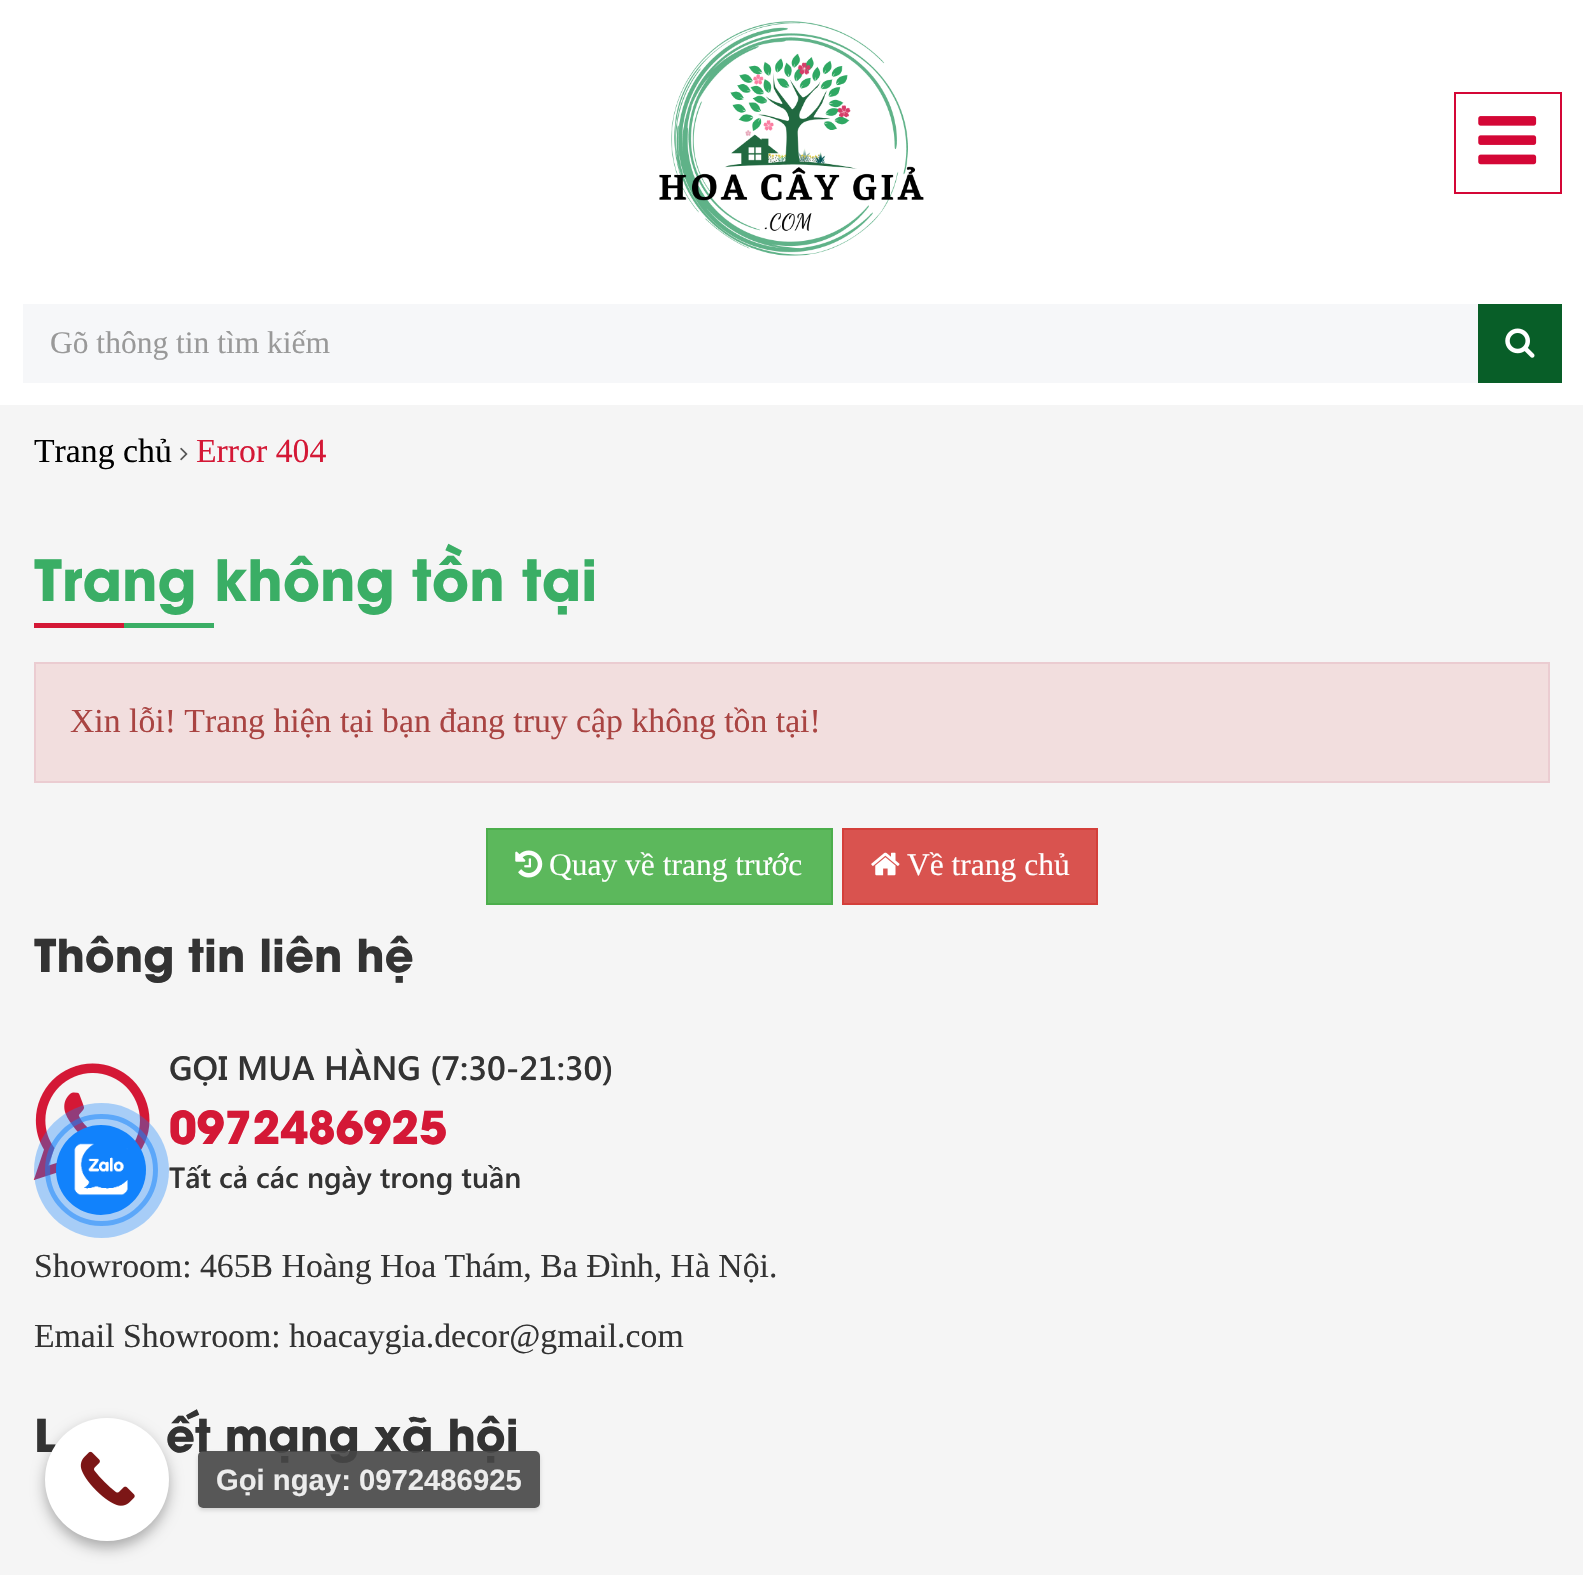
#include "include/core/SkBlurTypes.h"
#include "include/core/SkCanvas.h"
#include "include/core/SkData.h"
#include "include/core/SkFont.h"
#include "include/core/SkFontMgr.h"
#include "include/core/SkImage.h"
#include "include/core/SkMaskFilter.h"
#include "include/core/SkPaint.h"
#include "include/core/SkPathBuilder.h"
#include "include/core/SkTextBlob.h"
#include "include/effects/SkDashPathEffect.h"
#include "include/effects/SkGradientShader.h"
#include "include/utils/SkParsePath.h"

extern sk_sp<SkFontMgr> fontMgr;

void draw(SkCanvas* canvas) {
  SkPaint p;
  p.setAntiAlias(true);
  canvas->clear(SkColorSetRGB(245, 245, 245));
  p.setColor(SK_ColorWHITE);
  canvas->drawRect(SkRect::MakeLTRB(0, 0, 1583, 405), p);
  canvas->drawImageRect(SkImages::DeferredFromEncodedData(SkData::MakeFromFileName("images/1.png")), SkRect::MakeLTRB(659, 21, 924, 256), SkSamplingOptions());
  p.setStyle(SkPaint::kStroke_Style);
  p.setStrokeWidth(2);
  p.setColor(SkColorSetRGB(212, 7, 54));
  canvas->drawRect(SkRect::MakeLTRB(1455, 93, 1561, 193), p);
  canvas->drawImageRect(SkImages::DeferredFromEncodedData(SkData::MakeFromFileName("images/2.png")), SkRect::MakeLTRB(1478, 116, 1537, 165), SkSamplingOptions());
  p.setStyle(SkPaint::kFill_Style);
  p.setColor(SkColorSetRGB(246, 247, 249));
  canvas->drawRect(SkRect::MakeLTRB(23, 304, 1478, 383), p);
  p.setColor(SkColorSetRGB(8, 94, 40));
  canvas->drawRect(SkRect::MakeLTRB(1478, 304, 1562, 383), p);
  canvas->drawImageRect(SkImages::DeferredFromEncodedData(SkData::MakeFromFileName("images/3.png")), SkRect::MakeLTRB(1505, 328, 1535, 358), SkSamplingOptions());
  canvas->drawImageRect(SkImages::DeferredFromEncodedData(SkData::MakeFromFileName("images/4.png")), SkRect::MakeLTRB(180, 447, 188, 461), SkSamplingOptions());
  p.setColor(SkColorSetRGB(212, 24, 54));
  canvas->drawRect(SkRect::MakeLTRB(34, 623, 124, 628), p);
  p.setColor(SkColorSetRGB(58, 174, 101));
  canvas->drawRect(SkRect::MakeLTRB(124, 623, 214, 628), p);
  p.setColor(SkColorSetRGB(242, 222, 222));
  canvas->drawRect(SkRect::MakeLTRB(35, 663, 1549, 782), p);
  p.setStyle(SkPaint::kStroke_Style);
  p.setColor(SkColorSetRGB(235, 204, 209));
  canvas->drawRect(SkRect::MakeLTRB(35, 663, 1549, 782), p);
  p.setStyle(SkPaint::kFill_Style);
  p.setColor(SkColorSetRGB(92, 184, 92));
  canvas->drawRect(SkRect::MakeLTRB(487, 829, 832, 904), p);
  p.setStyle(SkPaint::kStroke_Style);
  p.setColor(SkColorSetRGB(76, 174, 76));
  canvas->drawRect(SkRect::MakeLTRB(487, 829, 832, 904), p);
  canvas->drawImageRect(SkImages::DeferredFromEncodedData(SkData::MakeFromFileName("images/5.png")), SkRect::MakeLTRB(515, 850, 543, 878), SkSamplingOptions());
  p.setStyle(SkPaint::kFill_Style);
  p.setColor(SkColorSetRGB(217, 83, 79));
  canvas->drawRect(SkRect::MakeLTRB(843, 829, 1097, 904), p);
  p.setStyle(SkPaint::kStroke_Style);
  p.setColor(SkColorSetRGB(212, 63, 58));
  canvas->drawRect(SkRect::MakeLTRB(843, 829, 1097, 904), p);
  canvas->drawImageRect(SkImages::DeferredFromEncodedData(SkData::MakeFromFileName("images/6.png")), SkRect::MakeLTRB(871, 852, 900, 876), SkSamplingOptions());
  canvas->drawImageRect(SkImages::DeferredFromEncodedData(SkData::MakeFromFileName("images/7.png")), SkRect::MakeLTRB(33, 1063, 150, 1180), SkSamplingOptions());
  p.setStrokeWidth(5);
  p.setColor(SkColorSetARGB(128, 17, 130, 252));
  canvas->drawRoundRect(SkRect::MakeLTRB(47.5f, 1116.5f, 155.5f, 1223.5f), 53.5f, 53.5f, p);
  p.setStyle(SkPaint::kFill_Style);
  p.setColor(SkColorSetARGB(87, 17, 130, 252));
  canvas->drawCircle(101.5f, 1170.5f, 67.5f, p);
  p.setColor(SkColorSetRGB(17, 130, 252));
  canvas->drawCircle(101, 1170, 45, p);
  canvas->drawImageRect(SkImages::DeferredFromEncodedData(SkData::MakeFromFileName("images/8.png")), SkRect::MakeLTRB(74, 1143, 128, 1196), SkSamplingOptions());
  p.setColor(SkColorSetARGB(77, 0, 0, 0));
  p.setMaskFilter(SkMaskFilter::MakeBlur(kNormal_SkBlurStyle, 7));
  canvas->drawRoundRect(SkRect::MakeLTRB(45, 1424, 169, 1548), 62, 62, p);
  p.setMaskFilter(nullptr);
  canvas->save();
  canvas->clipPath(SkPathBuilder(SkPathFillType::kEvenOdd).moveTo(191, 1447).lineTo(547, 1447).lineTo(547, 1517).lineTo(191, 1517).close().moveTo(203, 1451).lineTo(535, 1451).cubicTo(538, 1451, 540, 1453, 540, 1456).lineTo(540, 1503).cubicTo(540, 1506, 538, 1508, 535, 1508).lineTo(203, 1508).cubicTo(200, 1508, 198, 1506, 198, 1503).lineTo(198, 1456).cubicTo(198, 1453, 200, 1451, 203, 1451).close().detach(), true);
  p.setColor(SkColorSetARGB(38, 0, 0, 0));
  p.setMaskFilter(SkMaskFilter::MakeBlur(kNormal_SkBlurStyle, 2));
  canvas->drawRoundRect(SkRect::MakeLTRB(198, 1454, 540, 1510), 5, 5, p);
  p.setMaskFilter(nullptr);
  canvas->restore();
  SkFont font1(fontMgr->matchFamilyStyle("Liberation Serif", SkFontStyle::Normal()), 31.5f);
  font1.setSubpixel(true);
  p.setColor(SkColorSetRGB(153, 153, 153));
  canvas->drawString("Gõ thông tin tìm kiếm", 50, 353, font1, p);
  SkFont font2(fontMgr->matchFamilyStyle("Liberation Serif", SkFontStyle::Normal()), 33.75f);
  font2.setSubpixel(true);
  p.setColor(SK_ColorBLACK);
  canvas->drawString("Trang chủ", 34, 462, font2, p);
  p.setColor(SkColorSetRGB(212, 24, 54));
  canvas->drawString("Error 404", 196, 462, font2, p);
  SkFont font3(fontMgr->matchFamilyStyle("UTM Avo", SkFontStyle::Bold()), 56.25f);
  font3.setSubpixel(true);
  p.setColor(SkColorSetRGB(58, 174, 101));
  canvas->drawString("Trang không tồn tại", 34, 601, font3, p);
  p.setColor(SkColorSetRGB(169, 68, 66));
  canvas->drawString("Xin lỗi! Trang hiện tại bạn đang truy cập không tồn tại!", 70, 732, font2, p);
  p.setColor(SK_ColorWHITE);
  canvas->drawString("Quay về trang trước", 549, 875, font1, p);
  canvas->drawString("Về trang chủ", 907, 875, font1, p);
  SkFont font4(fontMgr->matchFamilyStyle("UTM Avo", SkFontStyle::Bold()), 45);
  font4.setSubpixel(true);
  p.setColor(SkColorSetRGB(51, 51, 51));
  canvas->drawString("Thông tin liên hệ", 34, 972, font4, p);
  SkFont font5(fontMgr->matchFamilyStyle("Segoe UI", SkFontStyle(600, SkFontStyle::kNormal_Width, SkFontStyle::kUpright_Slant)), 33.75f);
  font5.setSubpixel(true);
  canvas->drawString("GỌI MUA HÀNG (7:30-21:30)", 169, 1080, font5, p);
  p.setColor(SkColorSetRGB(212, 24, 54));
  canvas->drawString("0972486925", 169, 1144, font4, p);
  SkFont font6(fontMgr->matchFamilyStyle("Segoe UI", SkFontStyle(600, SkFontStyle::kNormal_Width, SkFontStyle::kUpright_Slant)), 29.25f);
  font6.setSubpixel(true);
  p.setColor(SkColorSetRGB(51, 51, 51));
  canvas->drawString("Tất cả các ngày trong tuần", 169, 1188, font6, p);
  canvas->drawString("Showroom: 465B Hoàng Hoa Thám, Ba Đình, Hà Nội.", 34, 1277, font2, p);
  canvas->drawString("Email Showroom: hoacaygia.decor@gmail.com", 34, 1347, font2, p);
  canvas->drawString("L", 34, 1452, font4, p);
  canvas->drawString("ết mạng xã hội", 166, 1452, font4, p);
  p.setColor(SK_ColorWHITE);
  canvas->drawRoundRect(SkRect::MakeLTRB(45, 1418, 169, 1541), 61.5f, 61.5f, p);
  canvas->drawImageRect(SkImages::DeferredFromEncodedData(SkData::MakeFromFileName("images/9.png")), SkRect::MakeLTRB(80, 1451, 135, 1506), SkSamplingOptions());
  p.setColor(SkColorSetARGB(230, 70, 70, 70));
  canvas->drawRoundRect(SkRect::MakeLTRB(198, 1451, 540, 1508), 5, 5, p);
  SkFont font7(fontMgr->matchFamilyStyle("Liberation Sans", SkFontStyle::Bold()), 29.25f);
  font7.setSubpixel(true);
  p.setColor(SkColorSetRGB(236, 236, 236));
  canvas->drawString("Gọi ngay: 0972486925", 216, 1490, font7, p);
}
